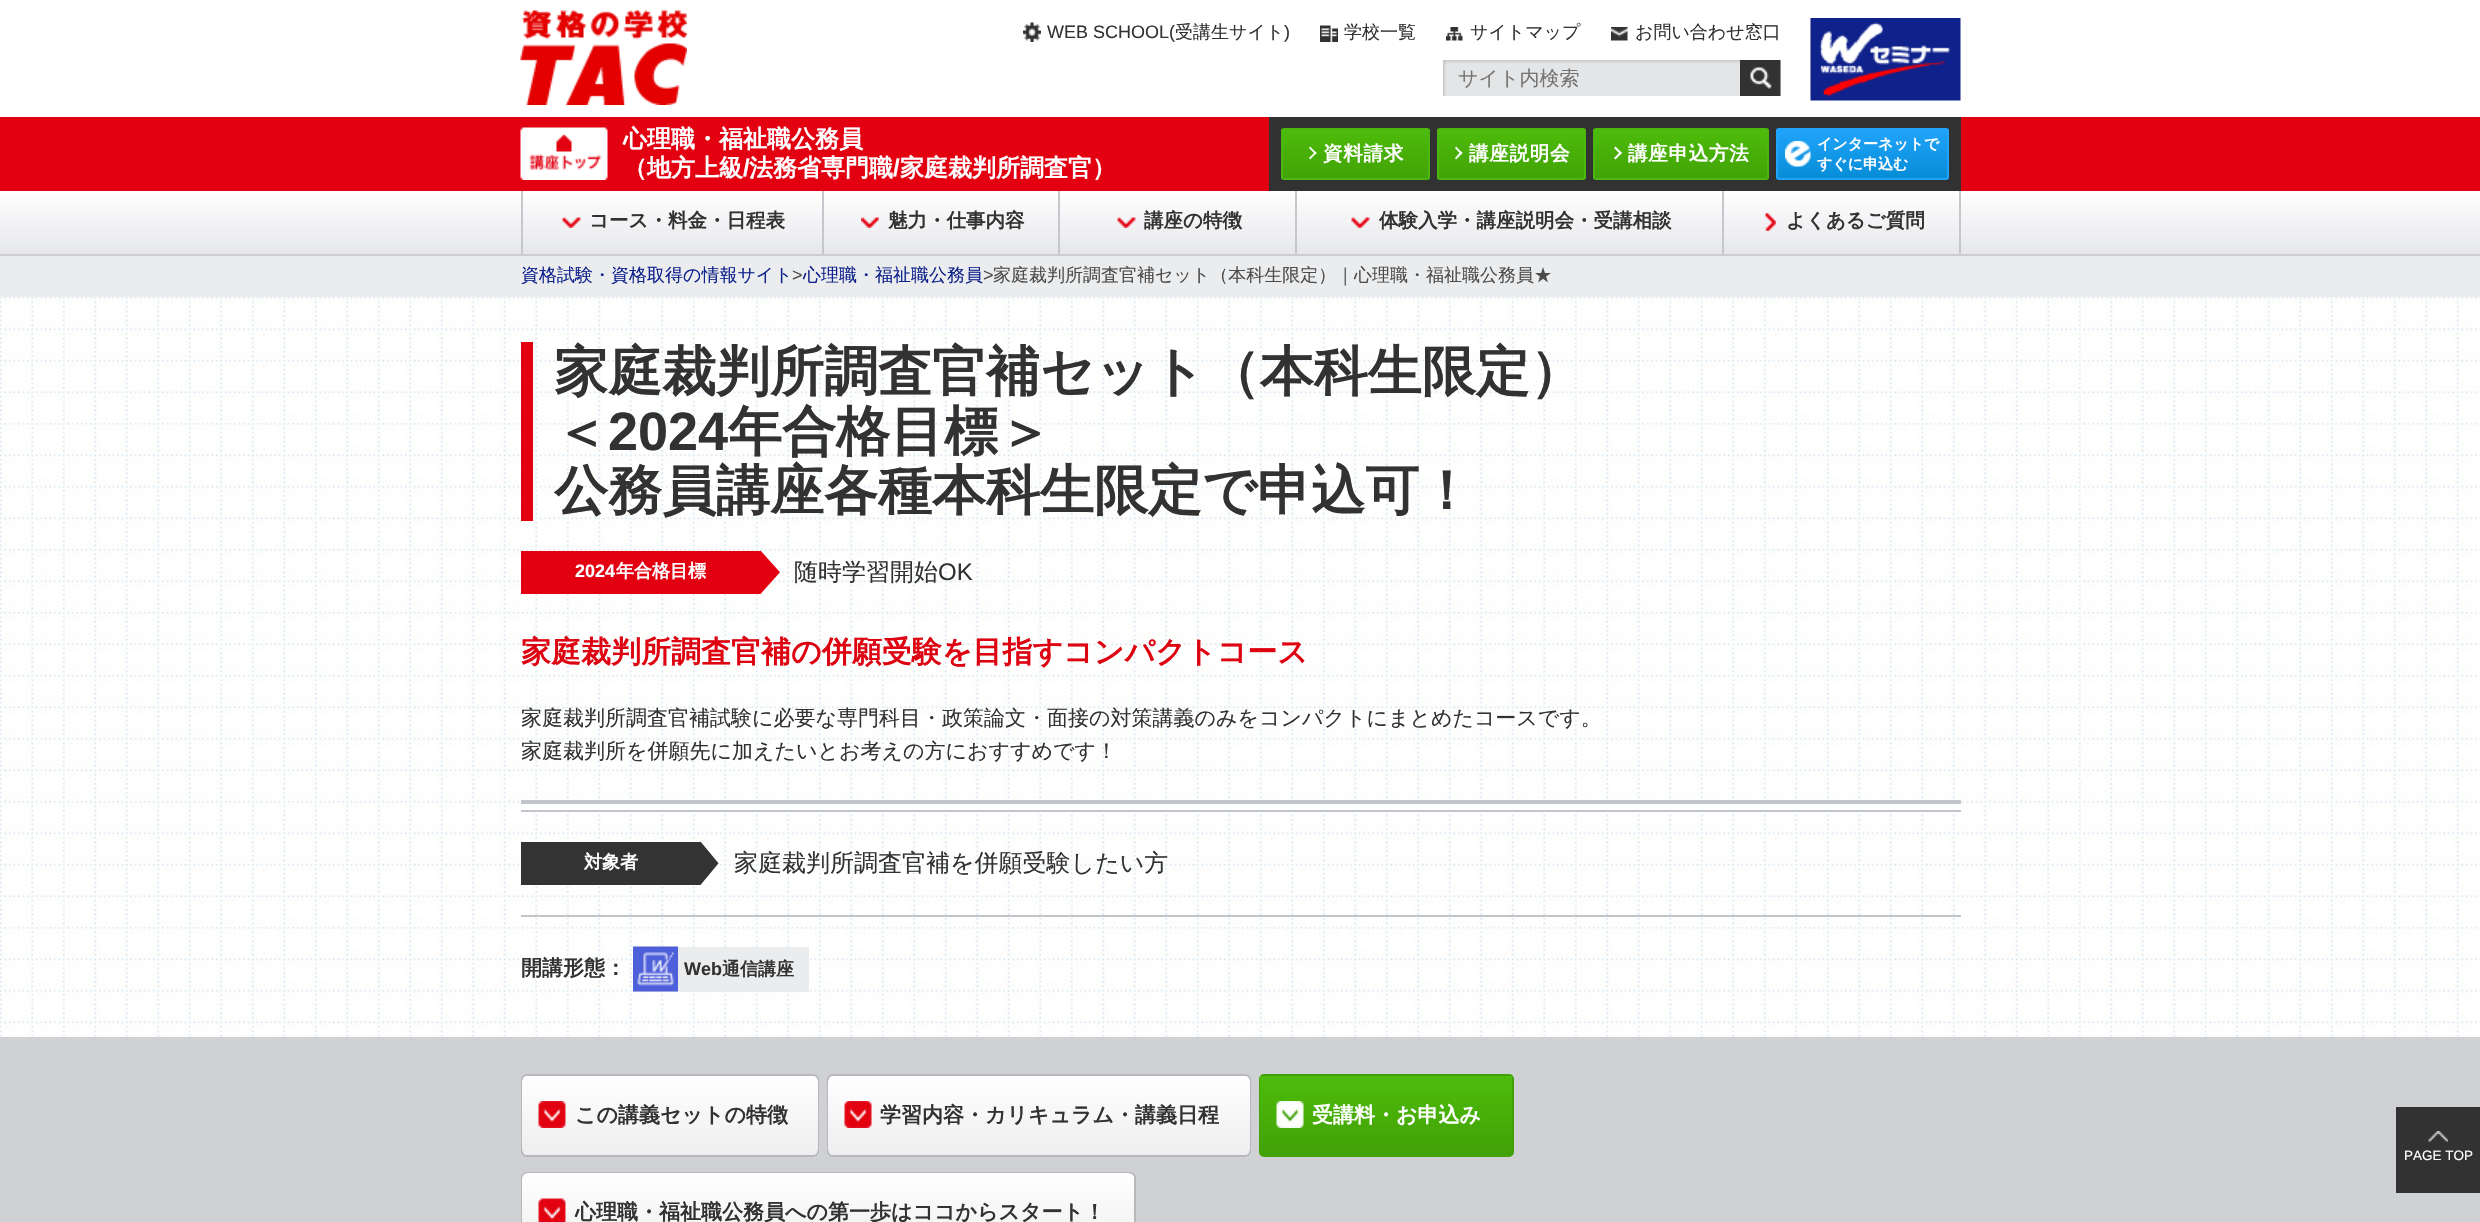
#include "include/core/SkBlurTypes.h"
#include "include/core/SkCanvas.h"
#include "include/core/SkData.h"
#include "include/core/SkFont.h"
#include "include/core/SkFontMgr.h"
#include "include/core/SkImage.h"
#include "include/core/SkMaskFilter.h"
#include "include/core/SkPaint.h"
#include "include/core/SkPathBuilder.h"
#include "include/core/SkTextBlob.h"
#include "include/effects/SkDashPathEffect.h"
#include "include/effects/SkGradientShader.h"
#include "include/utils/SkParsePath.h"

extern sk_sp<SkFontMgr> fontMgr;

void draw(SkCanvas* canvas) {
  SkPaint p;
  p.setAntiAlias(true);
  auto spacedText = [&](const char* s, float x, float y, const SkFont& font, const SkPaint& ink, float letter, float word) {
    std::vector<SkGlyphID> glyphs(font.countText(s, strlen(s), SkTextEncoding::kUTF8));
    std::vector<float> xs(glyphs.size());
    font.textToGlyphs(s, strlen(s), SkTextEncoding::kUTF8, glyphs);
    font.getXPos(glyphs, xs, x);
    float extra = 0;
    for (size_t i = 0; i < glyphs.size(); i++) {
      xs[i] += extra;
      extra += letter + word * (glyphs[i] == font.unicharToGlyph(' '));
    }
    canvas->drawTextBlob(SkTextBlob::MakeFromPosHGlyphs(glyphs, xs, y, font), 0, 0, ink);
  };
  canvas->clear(SK_ColorWHITE);
  canvas->drawImageRect(SkImages::DeferredFromEncodedData(SkData::MakeFromFileName("images/1.png")), SkRect::MakeLTRB(520, 10, 687, 105), SkSamplingOptions());
  canvas->drawImageRect(SkImages::DeferredFromEncodedData(SkData::MakeFromFileName("images/2.png")), SkRect::MakeLTRB(1023, 22, 1041, 42), SkSamplingOptions());
  canvas->drawImageRect(SkImages::DeferredFromEncodedData(SkData::MakeFromFileName("images/3.png")), SkRect::MakeLTRB(1320, 25, 1338, 42), SkSamplingOptions());
  canvas->drawImageRect(SkImages::DeferredFromEncodedData(SkData::MakeFromFileName("images/4.png")), SkRect::MakeLTRB(1446, 27, 1463, 41), SkSamplingOptions());
  canvas->drawImageRect(SkImages::DeferredFromEncodedData(SkData::MakeFromFileName("images/5.png")), SkRect::MakeLTRB(1611, 27, 1628, 41), SkSamplingOptions());
  canvas->drawImageRect(SkImages::DeferredFromEncodedData(SkData::MakeFromFileName("images/6.png")), SkRect::MakeLTRB(1443, 60, 1740, 96), SkSamplingOptions());
  p.setColor(SkColorSetRGB(239, 239, 239));
  canvas->drawRect(SkRect::MakeLTRB(1780, 60, 1781, 96), p);
  canvas->drawImageRect(SkImages::DeferredFromEncodedData(SkData::MakeFromFileName("images/7.png")), SkRect::MakeLTRB(1740, 60, 1781, 96), SkSamplingOptions());
  canvas->drawImageRect(SkImages::DeferredFromEncodedData(SkData::MakeFromFileName("images/8.png")), SkRect::MakeLTRB(1810, 18, 1961, 101), SkSamplingOptions());
  p.setColor(SkColorSetRGB(226, 0, 17));
  canvas->drawRect(SkRect::MakeLTRB(0, 117, 2480, 191), p);
  canvas->drawImageRect(SkImages::DeferredFromEncodedData(SkData::MakeFromFileName("images/9.png")), SkRect::MakeLTRB(520, 127, 608, 180), SkSamplingOptions());
  p.setColor(SkColorSetRGB(50, 50, 50));
  canvas->drawRect(SkRect::MakeLTRB(1269, 117, 1961, 191), p);
  canvas->save();
  canvas->clipPath(SkPathBuilder().moveTo(1284, 128).lineTo(1427, 128).cubicTo(1428.5f, 128, 1430, 129.5f, 1430, 131).lineTo(1430, 177).cubicTo(1430, 178.5f, 1428.5f, 180, 1427, 180).lineTo(1284, 180).cubicTo(1282.5f, 180, 1281, 178.5f, 1281, 177).lineTo(1281, 131).cubicTo(1281, 129.5f, 1282.5f, 128, 1284, 128).close().detach(), true);
  {
    const SkColor colors[] = {SkColorSetRGB(77, 188, 10), SkColorSetRGB(66, 162, 7)};
    const float stops[] = {0, 1};
    const SkPoint ends[] = {{1355, 129}, {1355, 179}};
    p.setShader(SkGradientShader::MakeLinear(ends, colors, stops, 2, SkTileMode::kClamp));
    p.setAlpha(255);
  }
  canvas->drawRect(SkRect::MakeLTRB(1281, 129, 1430, 179), p);
  canvas->restore();
  p.setShader(nullptr);
  p.setColor(SkColorSetRGB(76, 183, 12));
  canvas->drawPath(SkPathBuilder(SkPathFillType::kEvenOdd).moveTo(1284, 128).cubicTo(1282, 128, 1281, 129, 1281, 131).lineTo(1281, 177).cubicTo(1281, 179, 1282, 180, 1284, 180).lineTo(1427, 180).cubicTo(1429, 180, 1430, 179, 1430, 177).lineTo(1430, 131).cubicTo(1430, 129, 1429, 128, 1427, 128).close().moveTo(1283, 130).lineTo(1283, 178).lineTo(1428, 178).lineTo(1428, 130).close().detach(), p);
  p.setColor(SK_ColorWHITE);
  canvas->drawPath(SkPathBuilder().moveTo(1310, 146.5f).lineTo(1316.5f, 153).lineTo(1315.5f, 154.5f).lineTo(1309, 148).close().detach(), p);
  canvas->drawPath(SkPathBuilder().moveTo(1315.5f, 151.5f).lineTo(1316.5f, 153).lineTo(1310, 159.5f).lineTo(1309, 158).close().detach(), p);
  canvas->save();
  canvas->clipPath(SkPathBuilder().moveTo(1440, 128).lineTo(1583, 128).cubicTo(1584.5f, 128, 1586, 129.5f, 1586, 131).lineTo(1586, 177).cubicTo(1586, 178.5f, 1584.5f, 180, 1583, 180).lineTo(1440, 180).cubicTo(1438.5f, 180, 1437, 178.5f, 1437, 177).lineTo(1437, 131).cubicTo(1437, 129.5f, 1438.5f, 128, 1440, 128).close().detach(), true);
  {
    const SkColor colors[] = {SkColorSetRGB(77, 188, 10), SkColorSetRGB(66, 162, 7)};
    const float stops[] = {0, 1};
    const SkPoint ends[] = {{1511, 129}, {1511, 179}};
    p.setShader(SkGradientShader::MakeLinear(ends, colors, stops, 2, SkTileMode::kClamp));
    p.setAlpha(255);
  }
  canvas->drawRect(SkRect::MakeLTRB(1437, 129, 1586, 179), p);
  canvas->restore();
  p.setShader(nullptr);
  p.setColor(SkColorSetRGB(76, 183, 12));
  canvas->drawPath(SkPathBuilder(SkPathFillType::kEvenOdd).moveTo(1440, 128).cubicTo(1438, 128, 1437, 129, 1437, 131).lineTo(1437, 177).cubicTo(1437, 179, 1438, 180, 1440, 180).lineTo(1583, 180).cubicTo(1585, 180, 1586, 179, 1586, 177).lineTo(1586, 131).cubicTo(1586, 129, 1585, 128, 1583, 128).close().moveTo(1439, 130).lineTo(1439, 178).lineTo(1584, 178).lineTo(1584, 130).close().detach(), p);
  p.setColor(SK_ColorWHITE);
  canvas->drawPath(SkPathBuilder().moveTo(1456, 146.5f).lineTo(1462.5f, 153).lineTo(1461, 154.5f).lineTo(1455, 148).close().detach(), p);
  canvas->drawPath(SkPathBuilder().moveTo(1461, 151.5f).lineTo(1462.5f, 153).lineTo(1456, 159.5f).lineTo(1455, 158).close().detach(), p);
  canvas->save();
  canvas->clipPath(SkPathBuilder().moveTo(1596, 128).lineTo(1766, 128).cubicTo(1767.5f, 128, 1769, 129.5f, 1769, 131).lineTo(1769, 177).cubicTo(1769, 178.5f, 1767.5f, 180, 1766, 180).lineTo(1596, 180).cubicTo(1594.5f, 180, 1593, 178.5f, 1593, 177).lineTo(1593, 131).cubicTo(1593, 129.5f, 1594.5f, 128, 1596, 128).close().detach(), true);
  {
    const SkColor colors[] = {SkColorSetRGB(77, 188, 10), SkColorSetRGB(66, 162, 7)};
    const float stops[] = {0, 1};
    const SkPoint ends[] = {{1681, 129}, {1681, 179}};
    p.setShader(SkGradientShader::MakeLinear(ends, colors, stops, 2, SkTileMode::kClamp));
    p.setAlpha(255);
  }
  canvas->drawRect(SkRect::MakeLTRB(1593, 129, 1769, 179), p);
  canvas->restore();
  p.setShader(nullptr);
  p.setColor(SkColorSetRGB(76, 183, 12));
  canvas->drawPath(SkPathBuilder(SkPathFillType::kEvenOdd).moveTo(1596, 128).cubicTo(1594, 128, 1593, 129, 1593, 131).lineTo(1593, 177).cubicTo(1593, 179, 1594, 180, 1596, 180).lineTo(1766, 180).cubicTo(1768, 180, 1769, 179, 1769, 177).lineTo(1769, 131).cubicTo(1769, 129, 1768, 128, 1766, 128).close().moveTo(1595, 130).lineTo(1595, 178).lineTo(1767, 178).lineTo(1767, 130).close().detach(), p);
  p.setColor(SK_ColorWHITE);
  canvas->drawPath(SkPathBuilder().moveTo(1615.5f, 146.5f).lineTo(1622, 153).lineTo(1620.5f, 154.5f).lineTo(1614, 148).close().detach(), p);
  canvas->drawPath(SkPathBuilder().moveTo(1620.5f, 151.5f).lineTo(1622, 153).lineTo(1615.5f, 159.5f).lineTo(1614, 158).close().detach(), p);
  canvas->save();
  canvas->clipPath(SkPathBuilder().moveTo(1779, 128).lineTo(1946, 128).cubicTo(1947.5f, 128, 1949, 129.5f, 1949, 131).lineTo(1949, 177).cubicTo(1949, 178.5f, 1947.5f, 180, 1946, 180).lineTo(1779, 180).cubicTo(1777.5f, 180, 1776, 178.5f, 1776, 177).lineTo(1776, 131).cubicTo(1776, 129.5f, 1777.5f, 128, 1779, 128).close().detach(), true);
  {
    const SkColor colors[] = {SkColorSetRGB(33, 164, 251), SkColorSetRGB(6, 140, 214)};
    const float stops[] = {0, 1};
    const SkPoint ends[] = {{1862, 129}, {1862, 179}};
    p.setShader(SkGradientShader::MakeLinear(ends, colors, stops, 2, SkTileMode::kClamp));
    p.setAlpha(255);
  }
  canvas->drawRect(SkRect::MakeLTRB(1776, 129, 1949, 179), p);
  canvas->restore();
  p.setShader(nullptr);
  p.setColor(SkColorSetRGB(33, 164, 251));
  canvas->drawPath(SkPathBuilder(SkPathFillType::kEvenOdd).moveTo(1779, 128).cubicTo(1777, 128, 1776, 129, 1776, 131).lineTo(1776, 177).cubicTo(1776, 179, 1777, 180, 1779, 180).lineTo(1946, 180).cubicTo(1948, 180, 1949, 179, 1949, 177).lineTo(1949, 131).cubicTo(1949, 129, 1948, 128, 1946, 128).close().moveTo(1778, 130).lineTo(1778, 178).lineTo(1947, 178).lineTo(1947, 130).close().detach(), p);
  canvas->drawImageRect(SkImages::DeferredFromEncodedData(SkData::MakeFromFileName("images/10.png")), SkRect::MakeLTRB(1785, 141, 1811, 167), SkSamplingOptions());
  {
    const SkColor colors[] = {SK_ColorWHITE, SkColorSetRGB(230, 231, 234)};
    const float stops[] = {0, 1};
    const SkPoint ends[] = {{1241, 190}, {1241, 254}};
    p.setShader(SkGradientShader::MakeLinear(ends, colors, stops, 2, SkTileMode::kClamp));
    p.setAlpha(255);
  }
  canvas->drawRect(SkRect::MakeLTRB(0, 196, 2480, 254), p);
  p.setShader(nullptr);
  p.setColor(SkColorSetRGB(205, 205, 205));
  canvas->drawRect(SkRect::MakeLTRB(0, 254, 2480, 256), p);
  p.setColor(SkColorSetRGB(198, 199, 204));
  canvas->drawRect(SkRect::MakeLTRB(1959, 191, 1961, 254), p);
  canvas->drawRect(SkRect::MakeLTRB(521, 191, 523, 254), p);
  canvas->drawImageRect(SkImages::DeferredFromEncodedData(SkData::MakeFromFileName("images/11.png")), SkRect::MakeLTRB(562, 217, 581, 228), SkSamplingOptions());
  canvas->drawRect(SkRect::MakeLTRB(822, 191, 824, 254), p);
  canvas->drawImageRect(SkImages::DeferredFromEncodedData(SkData::MakeFromFileName("images/12.png")), SkRect::MakeLTRB(861, 217, 879, 228), SkSamplingOptions());
  canvas->drawRect(SkRect::MakeLTRB(1058, 191, 1060, 254), p);
  canvas->drawImageRect(SkImages::DeferredFromEncodedData(SkData::MakeFromFileName("images/11.png")), SkRect::MakeLTRB(1117, 217, 1136, 228), SkSamplingOptions());
  canvas->drawRect(SkRect::MakeLTRB(1295, 191, 1297, 254), p);
  canvas->drawImageRect(SkImages::DeferredFromEncodedData(SkData::MakeFromFileName("images/13.png")), SkRect::MakeLTRB(1351, 217, 1370, 228), SkSamplingOptions());
  canvas->drawRect(SkRect::MakeLTRB(1722, 191, 1724, 254), p);
  canvas->drawImageRect(SkImages::DeferredFromEncodedData(SkData::MakeFromFileName("images/14.png")), SkRect::MakeLTRB(1765, 213, 1776, 231), SkSamplingOptions());
  p.setColor(SkColorSetRGB(235, 236, 238));
  canvas->drawRect(SkRect::MakeLTRB(0, 256, 2480, 297), p);
  canvas->drawImageRect(SkImages::DeferredFromEncodedData(SkData::MakeFromFileName("images/15.png")), SkRect::MakeLTRB(0, 297, 2480, 1037), SkSamplingOptions());
  p.setColor(SkColorSetRGB(227, 0, 17));
  canvas->drawRect(SkRect::MakeLTRB(521, 342, 533, 521), p);
  canvas->drawRect(SkRect::MakeLTRB(521, 551, 761, 594), p);
  canvas->drawImageRect(SkImages::DeferredFromEncodedData(SkData::MakeFromFileName("images/16.png")), SkRect::MakeLTRB(760, 550, 780, 594), SkSamplingOptions());
  p.setColor(SkColorSetRGB(194, 197, 204));
  canvas->drawPath(SkPathBuilder().moveTo(521, 800).lineTo(521, 810).lineTo(1960, 810).lineTo(1960, 875).lineTo(1961, 875).lineTo(1961, 800).close().detach(), p);
  p.setColor(SK_ColorWHITE);
  canvas->drawPath(SkPathBuilder().moveTo(521, 804).lineTo(521, 810).lineTo(1960, 810).lineTo(1960, 879).lineTo(1961, 879).lineTo(1961, 804).close().detach(), p);
  p.setColor(SkColorSetRGB(194, 197, 204));
  canvas->drawRect(SkRect::MakeLTRB(521, 810, 1961, 812), p);
  p.setColor(SkColorSetRGB(51, 51, 51));
  canvas->drawRect(SkRect::MakeLTRB(521, 842, 701, 885), p);
  canvas->drawImageRect(SkImages::DeferredFromEncodedData(SkData::MakeFromFileName("images/17.png")), SkRect::MakeLTRB(700, 841, 719, 885), SkSamplingOptions());
  p.setColor(SkColorSetRGB(195, 196, 200));
  canvas->drawRect(SkRect::MakeLTRB(521, 915, 1961, 917), p);
  p.setColor(SkColorSetRGB(235, 236, 238));
  canvas->drawRect(SkRect::MakeLTRB(633, 947, 809, 992), p);
  canvas->drawImageRect(SkImages::DeferredFromEncodedData(SkData::MakeFromFileName("images/18.png")), SkRect::MakeLTRB(633, 946, 678, 992), SkSamplingOptions());
  p.setColor(SkColorSetRGB(208, 209, 213));
  canvas->drawRect(SkRect::MakeLTRB(0, 1037, 2480, 1222), p);
  p.setColor(SK_ColorWHITE);
  canvas->drawRoundRect(SkRect::MakeLTRB(522, 1075, 818, 1156), 5, 5, p);
  p.setStyle(SkPaint::kStroke_Style);
  p.setStrokeWidth(2);
  p.setColor(SkColorSetRGB(183, 184, 187));
  canvas->drawRoundRect(SkRect::MakeLTRB(522, 1075, 818, 1156), 5, 5, p);
  p.setStyle(SkPaint::kFill_Style);
  {
    const SkColor colors[] = {SK_ColorWHITE, SkColorSetRGB(238, 238, 238)};
    const float stops[] = {0, 1};
    const SkPoint ends[] = {{670, 1076}, {670, 1155}};
    p.setShader(SkGradientShader::MakeLinear(ends, colors, stops, 2, SkTileMode::kClamp));
    p.setAlpha(255);
  }
  canvas->drawRoundRect(SkRect::MakeLTRB(522, 1076, 818, 1155), 6, 6, p);
  canvas->drawImageRect(SkImages::DeferredFromEncodedData(SkData::MakeFromFileName("images/19.png")), SkRect::MakeLTRB(538, 1101, 566, 1128), SkSamplingOptions());
  p.setShader(nullptr);
  p.setColor(SK_ColorWHITE);
  canvas->drawRoundRect(SkRect::MakeLTRB(828, 1075, 1250, 1156), 5, 5, p);
  p.setStyle(SkPaint::kStroke_Style);
  p.setColor(SkColorSetRGB(183, 184, 187));
  canvas->drawRoundRect(SkRect::MakeLTRB(828, 1075, 1250, 1156), 5, 5, p);
  p.setStyle(SkPaint::kFill_Style);
  {
    const SkColor colors[] = {SK_ColorWHITE, SkColorSetRGB(238, 238, 238)};
    const float stops[] = {0, 1};
    const SkPoint ends[] = {{1039, 1076}, {1039, 1155}};
    p.setShader(SkGradientShader::MakeLinear(ends, colors, stops, 2, SkTileMode::kClamp));
    p.setAlpha(255);
  }
  canvas->drawRoundRect(SkRect::MakeLTRB(828, 1076, 1250, 1155), 6, 6, p);
  canvas->drawImageRect(SkImages::DeferredFromEncodedData(SkData::MakeFromFileName("images/20.png")), SkRect::MakeLTRB(844, 1101, 872, 1128), SkSamplingOptions());
  p.setStyle(SkPaint::kStroke_Style);
  p.setShader(nullptr);
  p.setColor(SkColorSetRGB(66, 161, 7));
  canvas->drawRoundRect(SkRect::MakeLTRB(1260, 1075, 1513, 1156), 4, 4, p);
  p.setStyle(SkPaint::kFill_Style);
  {
    const SkColor colors[] = {SkColorSetRGB(77, 188, 10), SkColorSetRGB(66, 161, 7)};
    const float stops[] = {0, 1};
    const SkPoint ends[] = {{1386, 1076}, {1386, 1155}};
    p.setShader(SkGradientShader::MakeLinear(ends, colors, stops, 2, SkTileMode::kClamp));
    p.setAlpha(255);
  }
  canvas->drawRect(SkRect::MakeLTRB(1260, 1076, 1512, 1155), p);
  canvas->drawImageRect(SkImages::DeferredFromEncodedData(SkData::MakeFromFileName("images/21.png")), SkRect::MakeLTRB(1276, 1101, 1304, 1128), SkSamplingOptions());
  p.setShader(nullptr);
  p.setColor(SK_ColorWHITE);
  canvas->drawRoundRect(SkRect::MakeLTRB(522, 1173, 1135, 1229), 5, 5, p);
  p.setStyle(SkPaint::kStroke_Style);
  p.setColor(SkColorSetRGB(183, 184, 187));
  canvas->drawRoundRect(SkRect::MakeLTRB(522, 1173, 1135, 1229), 5, 5, p);
  p.setStyle(SkPaint::kFill_Style);
  {
    const SkColor colors[] = {SK_ColorWHITE, SkColorSetRGB(238, 238, 238)};
    const float stops[] = {0, 1};
    const SkPoint ends[] = {{828, 1173}, {828, 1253}};
    p.setShader(SkGradientShader::MakeLinear(ends, colors, stops, 2, SkTileMode::kClamp));
    p.setAlpha(255);
  }
  canvas->drawRoundRect(SkRect::MakeLTRB(522, 1173, 1134, 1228), 6, 6, p);
  canvas->drawImageRect(SkImages::DeferredFromEncodedData(SkData::MakeFromFileName("images/22.png")), SkRect::MakeLTRB(538, 1198, 566, 1222), SkSamplingOptions());
  p.setShader(nullptr);
  p.setColor(SkColorSetRGB(50, 50, 50));
  canvas->drawRect(SkRect::MakeLTRB(2396, 1107, 2480, 1193), p);
  canvas->drawImageRect(SkImages::DeferredFromEncodedData(SkData::MakeFromFileName("images/23.png")), SkRect::MakeLTRB(2428, 1131, 2448, 1142), SkSamplingOptions());
  SkFont font1(fontMgr->matchFamilyStyle("Liberation Sans", SkFontStyle::Normal()), 18);
  font1.setSubpixel(true);
  canvas->drawString("WEB SCHOOL(", 1047, 38, font1, p);
  SkFont font2(fontMgr->matchFamilyStyle("WenQuanYi Zen Hei", SkFontStyle(500, SkFontStyle::kNormal_Width, SkFontStyle::kUpright_Slant)), 18);
  font2.setSubpixel(true);
  canvas->drawString("受講生サイト", 1175, 38, font2, p);
  canvas->drawString(")", 1284, 38, font1, p);
  canvas->drawString("学校一覧", 1344, 38, font2, p);
  canvas->drawString("サイトマップ", 1470, 38, font2, p);
  canvas->drawString("お問い合わせ窓口", 1635, 38, font2, p);
  SkFont font3(fontMgr->matchFamilyStyle("WenQuanYi Zen Hei", SkFontStyle(500, SkFontStyle::kNormal_Width, SkFontStyle::kUpright_Slant)), 20);
  font3.setSubpixel(true);
  p.setColor(SkColorSetRGB(117, 117, 117));
  canvas->drawString("サイト内検索", 1458, 85, font3, p);
  SkFont font4(fontMgr->matchFamilyStyle("WenQuanYi Zen Hei", SkFontStyle::Bold()), 24);
  font4.setSubpixel(true);
  p.setColor(SK_ColorWHITE);
  canvas->drawString("心理職・福祉職公務員", 623, 147, font4, p);
  canvas->drawString("（地方上級", 623, 176, font4, p);
  SkFont font5(fontMgr->matchFamilyStyle("Liberation Sans", SkFontStyle::Bold()), 24);
  font5.setSubpixel(true);
  canvas->drawString("/", 743, 176, font5, p);
  canvas->drawString("法務省専門職", 749, 176, font4, p);
  canvas->drawString("/", 893, 176, font5, p);
  canvas->drawString("家庭裁判所調査官）", 900, 176, font4, p);
  SkFont font6(fontMgr->matchFamilyStyle("WenQuanYi Zen Hei", SkFontStyle::Bold()), 19.5f);
  font6.setSubpixel(true);
  spacedText("資料請求", 1323, 160, font6, p, 0.75f, 0);
  spacedText("講座説明会", 1469, 160, font6, p, 0.75f, 0);
  spacedText("講座申込方法", 1628, 160, font6, p, 0.75f, 0);
  SkFont font7(fontMgr->matchFamilyStyle("WenQuanYi Zen Hei", SkFontStyle::Bold()), 15);
  font7.setSubpixel(true);
  canvas->drawString("インターネットで", 1817, 149, font7, p);
  canvas->drawString("すぐに申込む", 1817, 169, font7, p);
  p.setColor(SkColorSetRGB(50, 50, 50));
  canvas->drawString("コース・料金・日程表", 589, 227, font6, p);
  canvas->drawString("魅力・仕事内容", 888, 227, font6, p);
  canvas->drawString("講座の特徴", 1144, 227, font6, p);
  canvas->drawString("体験入学・講座説明会・受講相談", 1379, 227, font6, p);
  canvas->drawString("よくあるご質問", 1786, 227, font6, p);
  p.setColor(SkColorSetRGB(15, 33, 139));
  canvas->drawString("資格試験・資格取得の情報サイト", 521, 281, font2, p);
  p.setColor(SkColorSetRGB(76, 76, 76));
  canvas->drawString(">", 792, 281, font1, p);
  p.setColor(SkColorSetRGB(15, 33, 139));
  canvas->drawString("心理職・福祉職公務員", 803, 281, font2, p);
  p.setColor(SkColorSetRGB(76, 76, 76));
  canvas->drawString(">", 983, 281, font1, p);
  canvas->drawString("家庭裁判所調査官補セット（本科生限定）｜心理職・福祉職公務員★", 993, 281, font2, p);
  SkFont font8(fontMgr->matchFamilyStyle("WenQuanYi Zen Hei", SkFontStyle::Bold()), 54);
  font8.setSubpixel(true);
  p.setColor(SkColorSetRGB(50, 50, 50));
  canvas->drawString("家庭裁判所調査官補セット（本科生限定）", 554, 390, font8, p);
  canvas->drawString("＜", 554, 450, font8, p);
  SkFont font9(fontMgr->matchFamilyStyle("Liberation Sans", SkFontStyle::Bold()), 54);
  font9.setSubpixel(true);
  canvas->drawString("2024", 608, 450, font9, p);
  canvas->drawString("年合格目標＞", 728, 450, font8, p);
  canvas->drawString("公務員講座各種本科生限定で申込可！", 554, 509, font8, p);
  SkFont font10(fontMgr->matchFamilyStyle("Liberation Sans", SkFontStyle::Bold()), 18);
  font10.setSubpixel(true);
  p.setColor(SK_ColorWHITE);
  canvas->drawString("2024", 575, 577, font10, p);
  SkFont font11(fontMgr->matchFamilyStyle("WenQuanYi Zen Hei", SkFontStyle::Bold()), 18);
  font11.setSubpixel(true);
  canvas->drawString("年合格目標", 616, 577, font11, p);
  SkFont font12(fontMgr->matchFamilyStyle("WenQuanYi Zen Hei", SkFontStyle(500, SkFontStyle::kNormal_Width, SkFontStyle::kUpright_Slant)), 24);
  font12.setSubpixel(true);
  p.setColor(SkColorSetRGB(50, 50, 50));
  canvas->drawString("随時学習開始", 794, 580, font12, p);
  SkFont font13(fontMgr->matchFamilyStyle("Liberation Sans", SkFontStyle::Normal()), 24);
  font13.setSubpixel(true);
  canvas->drawString("OK", 938, 580, font13, p);
  SkFont font14(fontMgr->matchFamilyStyle("WenQuanYi Zen Hei", SkFontStyle::Bold()), 30);
  font14.setSubpixel(true);
  p.setColor(SkColorSetRGB(221, 3, 17));
  canvas->drawString("家庭裁判所調査官補の併願受験を目指すコンパクトコース", 521, 662, font14, p);
  SkFont font15(fontMgr->matchFamilyStyle("WenQuanYi Zen Hei", SkFontStyle(500, SkFontStyle::kNormal_Width, SkFontStyle::kUpright_Slant)), 21);
  font15.setSubpixel(true);
  p.setColor(SkColorSetRGB(50, 50, 50));
  canvas->drawString("家庭裁判所調査官補試験に必要な専門科目・政策論文・面接の対策講義のみをコンパクトにまとめたコースです。", 521, 725, font15, p);
  canvas->drawString("家庭裁判所を併願先に加えたいとお考えの方におすすめです！", 521, 758, font15, p);
  p.setColor(SK_ColorWHITE);
  canvas->drawString("対象者", 584, 868, font11, p);
  p.setColor(SkColorSetRGB(50, 50, 50));
  canvas->drawString("家庭裁判所調査官補を併願受験したい方", 734, 871, font12, p);
  SkFont font16(fontMgr->matchFamilyStyle("WenQuanYi Zen Hei", SkFontStyle::Bold()), 21);
  font16.setSubpixel(true);
  canvas->drawString("開講形態：", 521, 975, font16, p);
  canvas->drawString("Web", 684, 975, font10, p);
  canvas->drawString("通信講座", 722, 975, font11, p);
  canvas->drawString("この講義セットの特徴", 575, 1122, font16, p);
  canvas->drawString("学習内容・カリキュラム・講義日程", 880, 1122, font16, p);
  p.setColor(SK_ColorWHITE);
  canvas->drawString("受講料・お申込み", 1312, 1122, font16, p);
  p.setColor(SkColorSetRGB(50, 50, 50));
  canvas->drawString("心理職・福祉職公務員への第一歩はココからスタート！", 575, 1219, font16, p);
  SkFont font17(fontMgr->matchFamilyStyle("Liberation Sans", SkFontStyle::Normal()), 13.5f);
  font17.setSubpixel(true);
  p.setColor(SK_ColorWHITE);
  canvas->drawString("PAGE TOP", 2404, 1160, font17, p);
}
